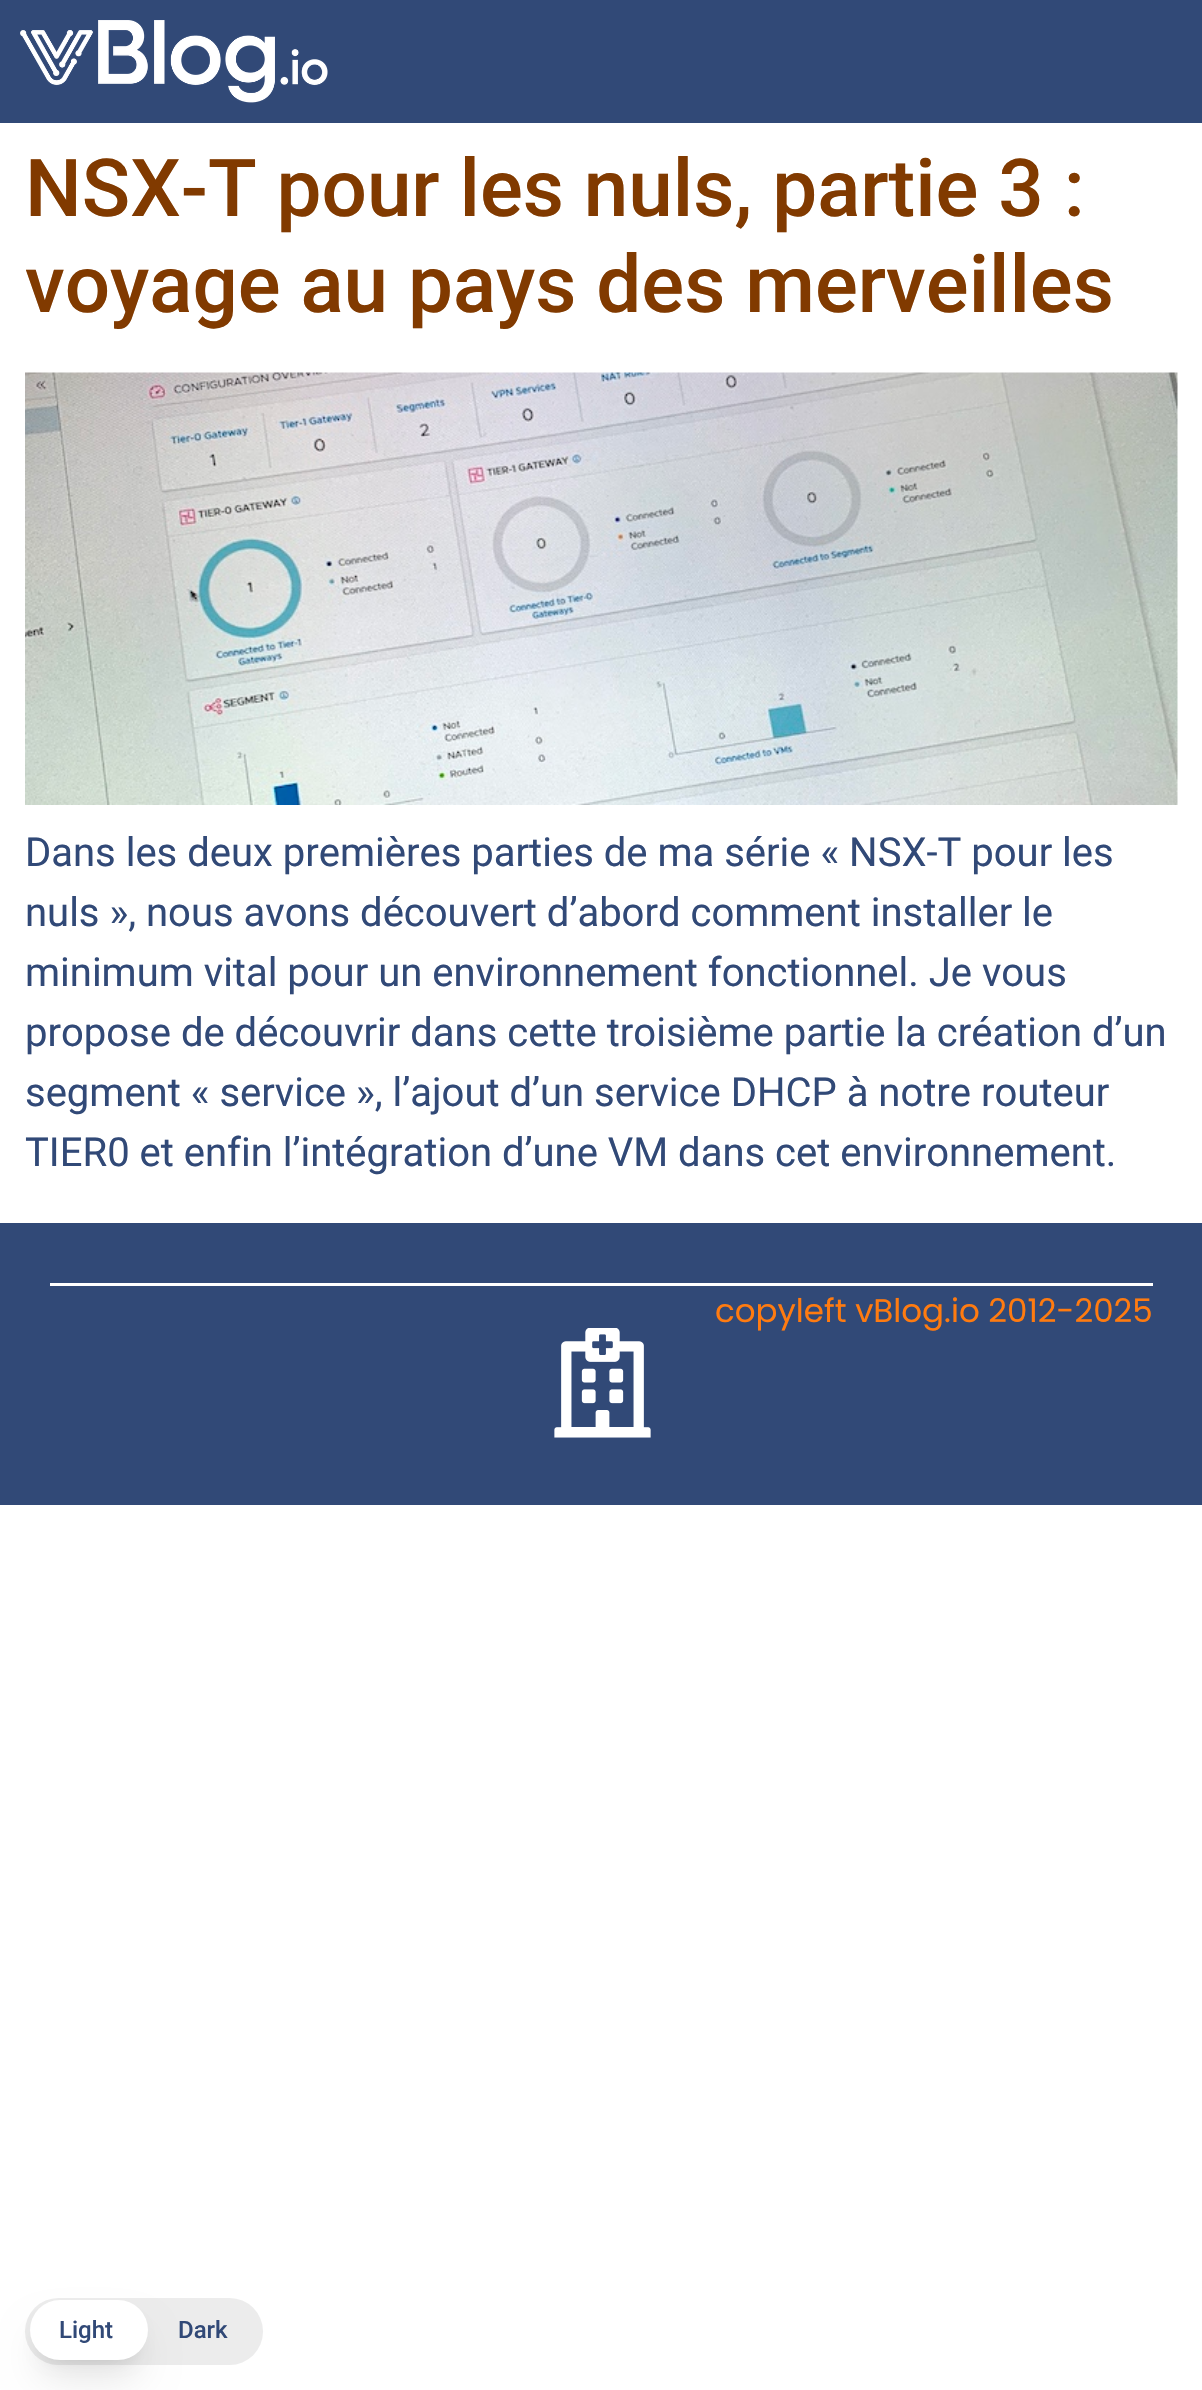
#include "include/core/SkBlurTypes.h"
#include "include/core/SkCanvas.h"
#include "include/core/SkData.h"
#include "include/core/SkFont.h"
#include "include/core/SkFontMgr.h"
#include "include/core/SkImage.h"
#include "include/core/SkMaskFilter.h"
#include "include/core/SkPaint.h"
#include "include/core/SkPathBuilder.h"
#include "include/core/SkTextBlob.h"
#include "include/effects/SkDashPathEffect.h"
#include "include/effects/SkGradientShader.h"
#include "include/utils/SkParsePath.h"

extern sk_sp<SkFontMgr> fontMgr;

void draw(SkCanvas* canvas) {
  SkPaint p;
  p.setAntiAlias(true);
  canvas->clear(SK_ColorWHITE);
  p.setColor(SkColorSetRGB(49, 73, 119));
  canvas->drawRect(SkRect::MakeLTRB(0, 0, 1202, 123), p);
  canvas->drawImageRect(SkImages::DeferredFromEncodedData(SkData::MakeFromFileName("images/1.png")), SkRect::MakeLTRB(20, 20, 328, 103), SkSamplingOptions());
  canvas->drawImageRect(SkImages::DeferredFromEncodedData(SkData::MakeFromFileName("images/2.png")), SkRect::MakeLTRB(25, 372, 1178, 805), SkSamplingOptions());
  canvas->drawRect(SkRect::MakeLTRB(0, 1223, 1202, 1505), p);
  p.setColor(SK_ColorWHITE);
  canvas->drawRect(SkRect::MakeLTRB(50, 1283, 1153, 1286), p);
  canvas->drawImageRect(SkImages::DeferredFromEncodedData(SkData::MakeFromFileName("images/3.png")), SkRect::MakeLTRB(554, 1328, 651, 1438), SkSamplingOptions());
  p.setColor(SkColorSetRGB(236, 236, 236));
  canvas->drawRoundRect(SkRect::MakeLTRB(25, 2298, 263, 2365), 33.5f, 33.5f, p);
  p.setColor(SkColorSetARGB(26, 0, 0, 0));
  p.setMaskFilter(SkMaskFilter::MakeBlur(kNormal_SkBlurStyle, 7.5f));
  canvas->drawRoundRect(SkRect::MakeLTRB(40, 2320, 138, 2360), 20, 20, p);
  p.setMaskFilter(nullptr);
  p.setMaskFilter(SkMaskFilter::MakeBlur(kNormal_SkBlurStyle, 19));
  canvas->drawRoundRect(SkRect::MakeLTRB(38, 2333, 140, 2378), 22.5f, 22.5f, p);
  p.setMaskFilter(nullptr);
  p.setColor(SK_ColorWHITE);
  canvas->drawRoundRect(SkRect::MakeLTRB(30, 2300, 148, 2360), 30, 30, p);
  SkFont font1(fontMgr->matchFamilyStyle("Roboto", SkFontStyle(500, SkFontStyle::kNormal_Width, SkFontStyle::kUpright_Slant)), 80);
  font1.setSubpixel(true);
  p.setColor(SkColorSetRGB(129, 58, 0));
  canvas->drawString("NSX-T pour les nuls, partie 3 :", 25, 216, font1, p);
  canvas->drawString("voyage au pays des merveilles", 25, 312, font1, p);
  SkFont font2(fontMgr->matchFamilyStyle("Roboto", SkFontStyle::Normal()), 40);
  font2.setSubpixel(true);
  p.setColor(SkColorSetRGB(49, 73, 119));
  canvas->drawString("Dans les deux premières parties de ma série « NSX-T pour les", 25, 866, font2, p);
  canvas->drawString("nuls », nous avons découvert d’abord comment installer le", 25, 926, font2, p);
  canvas->drawString("minimum vital pour un environnement fonctionnel. Je vous", 25, 986, font2, p);
  canvas->drawString("propose de découvrir dans cette troisième partie la création d’un", 25, 1046, font2, p);
  canvas->drawString("segment « service », l’ajout d’un service DHCP à notre routeur", 25, 1106, font2, p);
  canvas->drawString("TIER0 et enfin l’intégration d’une VM dans cet environnement.", 25, 1166, font2, p);
  SkFont font3(fontMgr->matchFamilyStyle("Poppins", SkFontStyle::Normal()), 32.5f);
  font3.setSubpixel(true);
  p.setColor(SkColorSetRGB(255, 123, 16));
  canvas->drawString("copyleft vBlog.io 2012-2025", 715, 1322, font3, p);
  SkFont font4(fontMgr->matchFamilyStyle("Roboto", SkFontStyle(500, SkFontStyle::kNormal_Width, SkFontStyle::kUpright_Slant)), 24);
  font4.setSubpixel(true);
  p.setColor(SkColorSetRGB(49, 73, 119));
  canvas->drawString("Light", 59, 2338, font4, p);
  canvas->drawString("Dark", 178, 2338, font4, p);
}
